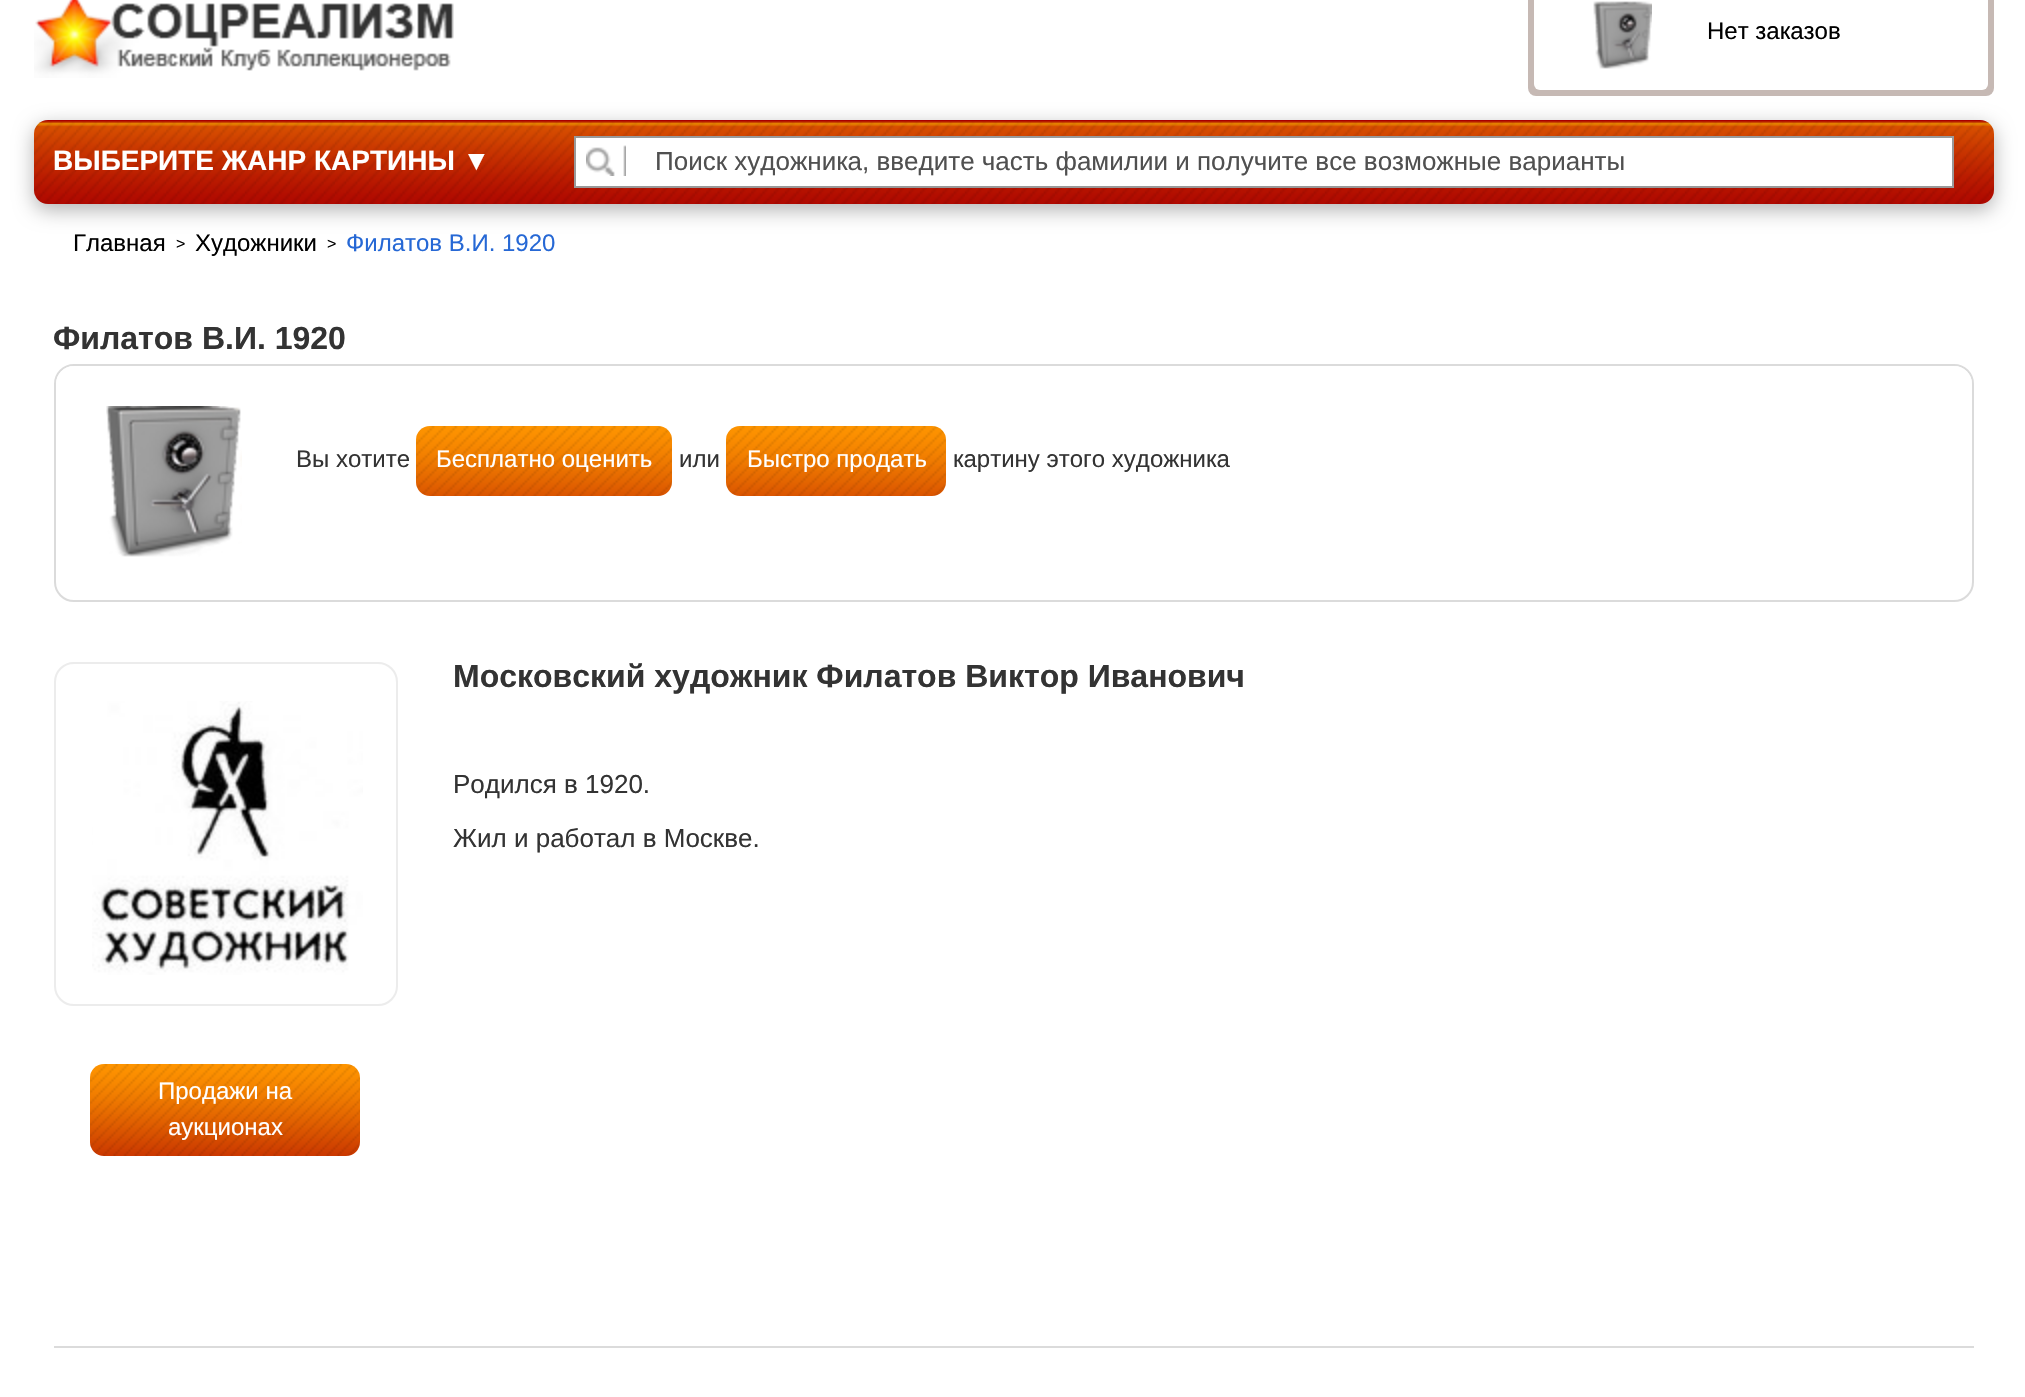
#include "include/core/SkBlurTypes.h"
#include "include/core/SkCanvas.h"
#include "include/core/SkData.h"
#include "include/core/SkFont.h"
#include "include/core/SkFontMgr.h"
#include "include/core/SkImage.h"
#include "include/core/SkMaskFilter.h"
#include "include/core/SkPaint.h"
#include "include/core/SkPathBuilder.h"
#include "include/core/SkTextBlob.h"
#include "include/effects/SkDashPathEffect.h"
#include "include/effects/SkGradientShader.h"
#include "include/utils/SkParsePath.h"

extern sk_sp<SkFontMgr> fontMgr;

void draw(SkCanvas* canvas) {
  SkPaint p;
  p.setAntiAlias(true);
  canvas->clear(SK_ColorWHITE);
  canvas->drawImageRect(SkImages::DeferredFromEncodedData(SkData::MakeFromFileName("images/1.png")), SkRect::MakeLTRB(34, 0, 454, 78), SkSamplingOptions());
  p.setColor(SkColorSetRGB(198, 185, 180));
  canvas->drawRoundRect(SkRect::MakeLTRB(1528, -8, 1994, 96), 8, 8, p);
  canvas->drawImageRect(SkImages::DeferredFromEncodedData(SkData::MakeFromFileName("images/2.png")), SkRect::MakeLTRB(1534, 0, 1988, 90), SkSamplingOptions());
  canvas->drawImageRect(SkImages::DeferredFromEncodedData(SkData::MakeFromFileName("images/3.png")), SkRect::MakeLTRB(1593, 1, 1652, 69), SkSamplingOptions());
  p.setColor(SkColorSetARGB(77, 0, 0, 0));
  p.setMaskFilter(SkMaskFilter::MakeBlur(kNormal_SkBlurStyle, 10));
  canvas->drawRoundRect(SkRect::MakeLTRB(34, 126, 1994, 210), 14, 14, p);
  p.setMaskFilter(nullptr);
  canvas->drawImageRect(SkImages::DeferredFromEncodedData(SkData::MakeFromFileName("images/4.png")), SkRect::MakeLTRB(34, 120, 1994, 204), SkSamplingOptions());
  p.setColor(SK_ColorWHITE);
  canvas->drawRect(SkRect::MakeLTRB(575, 137, 1953, 187), p);
  p.setStyle(SkPaint::kStroke_Style);
  p.setStrokeWidth(2);
  p.setColor(SkColorSetRGB(153, 153, 153));
  canvas->drawRect(SkRect::MakeLTRB(575, 137, 1953, 187), p);
  canvas->drawImageRect(SkImages::DeferredFromEncodedData(SkData::MakeFromFileName("images/5.png")), SkRect::MakeLTRB(586, 145, 626, 176), SkSamplingOptions());
  p.setColor(SkColorSetRGB(219, 219, 219));
  canvas->drawRoundRect(SkRect::MakeLTRB(55, 365, 1973, 601), 19, 19, p);
  p.setStyle(SkPaint::kFill_Style);
  p.setColor(SK_ColorWHITE);
  canvas->drawPath(SkPathBuilder().moveTo(74, 366).lineTo(1954, 366).cubicTo(1964, 366, 1972, 374, 1972, 384).lineTo(1972, 518).lineTo(56, 518).lineTo(56, 384).cubicTo(56, 374, 64, 366, 74, 366).close().detach(), p);
  canvas->drawImageRect(SkImages::DeferredFromEncodedData(SkData::MakeFromFileName("images/6.png")), SkRect::MakeLTRB(106, 406, 242, 557), SkSamplingOptions());
  canvas->drawImageRect(SkImages::DeferredFromEncodedData(SkData::MakeFromFileName("images/7.png")), SkRect::MakeLTRB(416, 426, 672, 496), SkSamplingOptions());
  canvas->drawImageRect(SkImages::DeferredFromEncodedData(SkData::MakeFromFileName("images/8.png")), SkRect::MakeLTRB(726, 426, 946, 496), SkSamplingOptions());
  p.setColor(SkColorSetRGB(219, 219, 219));
  canvas->drawRect(SkRect::MakeLTRB(54, 1346, 1974, 1348), p);
  p.setStyle(SkPaint::kStroke_Style);
  p.setColor(SkColorSetRGB(236, 236, 236));
  canvas->drawRoundRect(SkRect::MakeLTRB(55, 663, 397, 1005), 19, 19, p);
  canvas->drawImageRect(SkImages::DeferredFromEncodedData(SkData::MakeFromFileName("images/9.png")), SkRect::MakeLTRB(92, 701, 363, 975), SkSamplingOptions());
  canvas->drawImageRect(SkImages::DeferredFromEncodedData(SkData::MakeFromFileName("images/10.png")), SkRect::MakeLTRB(90, 1064, 360, 1156), SkSamplingOptions());
  SkFont font1(fontMgr->matchFamilyStyle("Liberation Sans", SkFontStyle::Normal()), 24);
  font1.setSubpixel(true);
  p.setStyle(SkPaint::kFill_Style);
  p.setColor(SK_ColorBLACK);
  canvas->drawString("Нет заказов", 1707, 39, font1, p);
  SkFont font2(fontMgr->matchFamilyStyle("Liberation Sans", SkFontStyle::Bold()), 28);
  font2.setSubpixel(true);
  p.setColor(SK_ColorWHITE);
  canvas->drawString("ВЫБЕРИТЕ ЖАНР КАРТИНЫ ▼", 53, 170, font2, p);
  SkFont font3(fontMgr->matchFamilyStyle("Liberation Sans", SkFontStyle::Normal()), 26);
  font3.setSubpixel(true);
  p.setColor(SkColorSetRGB(80, 80, 80));
  canvas->drawString("Поиск художника, введите часть фамилии и получите все возможные варианты", 655, 170, font3, p);
  p.setColor(SK_ColorBLACK);
  canvas->drawString("Главная", 73, 251, font1, p);
  SkFont font4(fontMgr->matchFamilyStyle("Liberation Sans", SkFontStyle::Normal()), 16);
  font4.setSubpixel(true);
  canvas->drawString(">", 176, 249, font4, p);
  canvas->drawString("Художники", 195, 251, font1, p);
  canvas->drawString(">", 327, 249, font4, p);
  p.setColor(SkColorSetRGB(38, 104, 213));
  canvas->drawString("Филатов В.И. 1920", 346, 251, font1, p);
  SkFont font5(fontMgr->matchFamilyStyle("Liberation Sans", SkFontStyle::Bold()), 32);
  font5.setSubpixel(true);
  p.setColor(SkColorSetRGB(51, 51, 51));
  canvas->drawString("Филатов В.И. 1920", 53, 349, font5, p);
  canvas->drawString("Вы хотите", 296, 467, font1, p);
  p.setColor(SK_ColorWHITE);
  canvas->drawString("Бесплатно оценить", 436, 467, font1, p);
  p.setColor(SkColorSetRGB(51, 51, 51));
  canvas->drawString("или", 679, 467, font1, p);
  p.setColor(SK_ColorWHITE);
  canvas->drawString("Быстро продать", 747, 467, font1, p);
  p.setColor(SkColorSetRGB(51, 51, 51));
  canvas->drawString("картину этого художника", 953, 467, font1, p);
  canvas->drawString("Московский художник Филатов Виктор Иванович", 453, 687, font5, p);
  canvas->drawString("Родился в 1920.", 453, 793, font3, p);
  canvas->drawString("Жил и работал в Москве.", 453, 847, font3, p);
  p.setColor(SK_ColorWHITE);
  canvas->drawString("Продажи на", 158, 1099, font1, p);
  canvas->drawString("аукционах", 168, 1135, font1, p);
}
